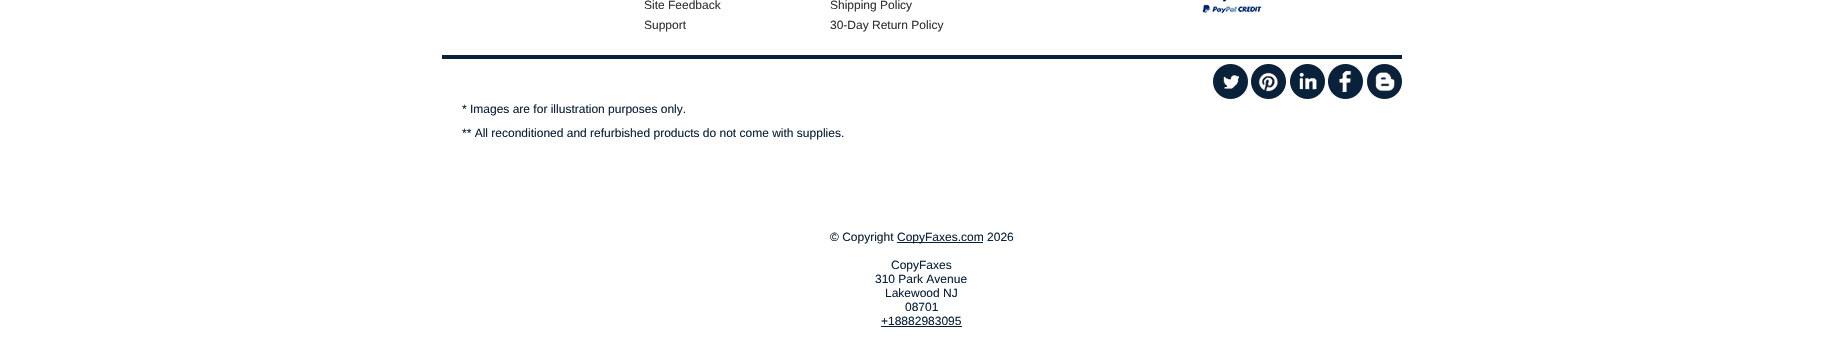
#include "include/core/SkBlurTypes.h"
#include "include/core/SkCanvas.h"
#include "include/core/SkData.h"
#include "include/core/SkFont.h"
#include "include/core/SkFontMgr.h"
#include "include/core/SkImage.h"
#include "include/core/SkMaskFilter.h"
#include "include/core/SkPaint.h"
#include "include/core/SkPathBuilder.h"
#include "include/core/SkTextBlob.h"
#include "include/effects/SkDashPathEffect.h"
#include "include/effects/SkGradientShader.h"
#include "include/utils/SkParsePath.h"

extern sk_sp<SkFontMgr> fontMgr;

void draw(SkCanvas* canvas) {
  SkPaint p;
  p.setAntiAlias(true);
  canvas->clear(SK_ColorWHITE);
  p.setColor(SkColorSetRGB(10, 33, 59));
  canvas->drawRect(SkRect::MakeLTRB(442, 55, 1402, 59), p);
  canvas->drawImageRect(SkImages::DeferredFromEncodedData(SkData::MakeFromFileName("images/1.png")), SkRect::MakeLTRB(1202, 0, 1262, 14), SkSamplingOptions());
  canvas->drawImageRect(SkImages::DeferredFromEncodedData(SkData::MakeFromFileName("images/2.png")), SkRect::MakeLTRB(1213, 64, 1248, 99), SkSamplingOptions());
  canvas->drawImageRect(SkImages::DeferredFromEncodedData(SkData::MakeFromFileName("images/3.png")), SkRect::MakeLTRB(1251, 64, 1286, 99), SkSamplingOptions());
  canvas->drawImageRect(SkImages::DeferredFromEncodedData(SkData::MakeFromFileName("images/4.png")), SkRect::MakeLTRB(1290, 64, 1325, 99), SkSamplingOptions());
  canvas->drawImageRect(SkImages::DeferredFromEncodedData(SkData::MakeFromFileName("images/5.png")), SkRect::MakeLTRB(1328, 64, 1363, 99), SkSamplingOptions());
  canvas->drawImageRect(SkImages::DeferredFromEncodedData(SkData::MakeFromFileName("images/6.png")), SkRect::MakeLTRB(1367, 64, 1402, 99), SkSamplingOptions());
  canvas->drawRect(SkRect::MakeLTRB(897, 242, 983, 243), p);
  canvas->drawRect(SkRect::MakeLTRB(881, 326, 962, 327), p);
  SkFont font1(fontMgr->matchFamilyStyle("Liberation Sans", SkFontStyle::Normal()), 12);
  font1.setSubpixel(true);
  p.setColor(SkColorSetRGB(51, 51, 51));
  canvas->drawString("Site Feedback", 644, 9, font1, p);
  canvas->drawString("Support", 644, 29, font1, p);
  canvas->drawString("Shipping Policy", 830, 9, font1, p);
  canvas->drawString("30-Day Return Policy", 830, 29, font1, p);
  p.setColor(SkColorSetRGB(10, 33, 59));
  canvas->drawString("* Images are for illustration purposes only.", 462, 113, font1, p);
  canvas->drawString("** All reconditioned and refurbished products do not come with supplies.", 462, 137, font1, p);
  canvas->drawString("© Copyright", 830, 241, font1, p);
  canvas->drawString("CopyFaxes.com 2026", 897, 241, font1, p);
  canvas->drawString("CopyFaxes", 891, 269, font1, p);
  canvas->drawString("310 Park Avenue", 875, 283, font1, p);
  canvas->drawString("Lakewood NJ", 885, 297, font1, p);
  canvas->drawString("08701", 905, 311, font1, p);
  canvas->drawString("+18882983095", 881, 325, font1, p);
}
